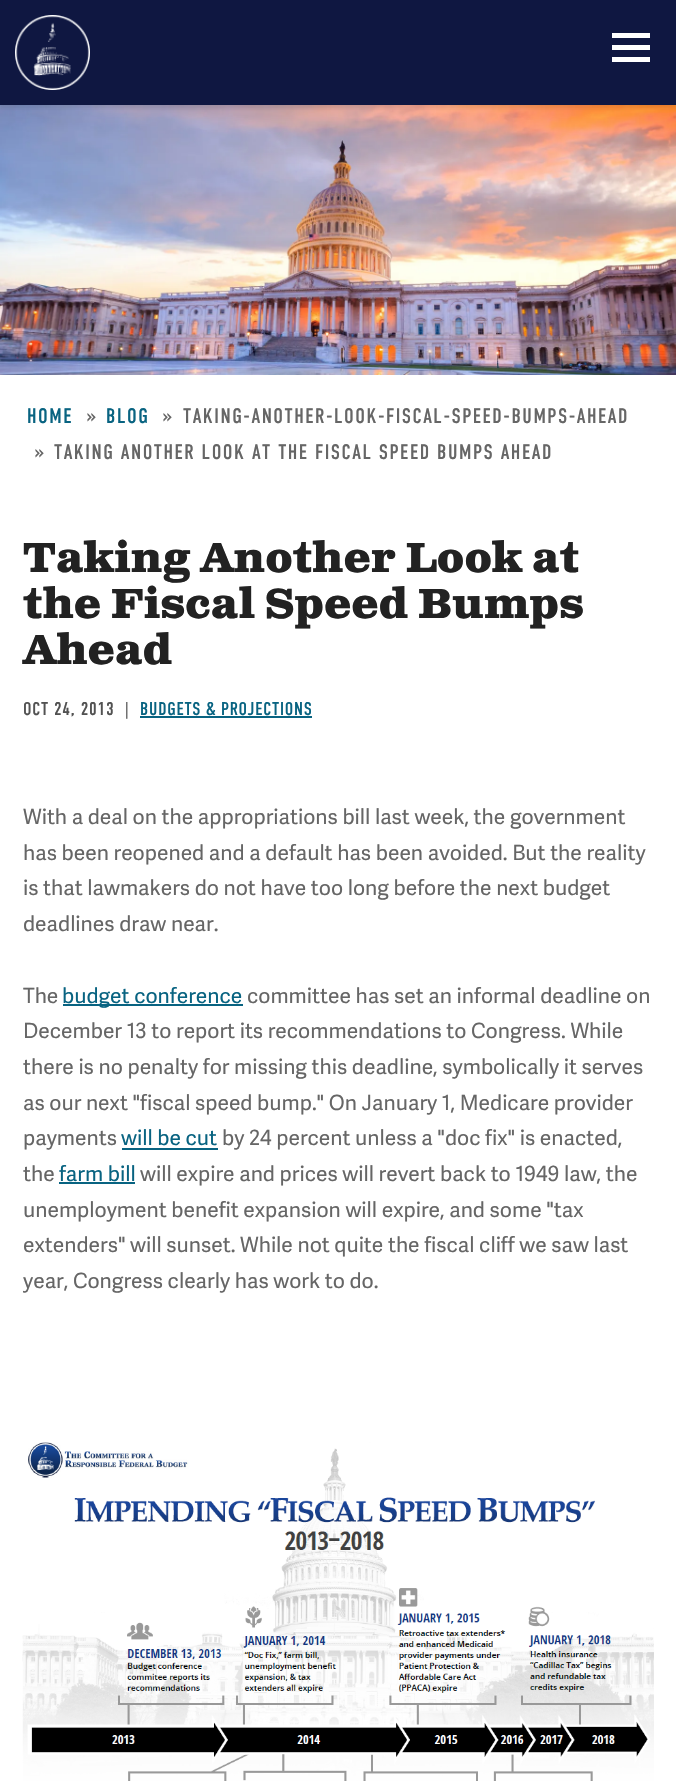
#include "include/core/SkBlurTypes.h"
#include "include/core/SkCanvas.h"
#include "include/core/SkData.h"
#include "include/core/SkFont.h"
#include "include/core/SkFontMgr.h"
#include "include/core/SkImage.h"
#include "include/core/SkMaskFilter.h"
#include "include/core/SkPaint.h"
#include "include/core/SkPathBuilder.h"
#include "include/core/SkTextBlob.h"
#include "include/effects/SkDashPathEffect.h"
#include "include/effects/SkGradientShader.h"
#include "include/utils/SkParsePath.h"

extern sk_sp<SkFontMgr> fontMgr;

void draw(SkCanvas* canvas) {
  SkPaint p;
  p.setAntiAlias(true);
  auto spacedText = [&](const char* s, float x, float y, const SkFont& font, const SkPaint& ink, float letter, float word) {
    std::vector<SkGlyphID> glyphs(font.countText(s, strlen(s), SkTextEncoding::kUTF8));
    std::vector<float> xs(glyphs.size());
    font.textToGlyphs(s, strlen(s), SkTextEncoding::kUTF8, glyphs);
    font.getXPos(glyphs, xs, x);
    float extra = 0;
    for (size_t i = 0; i < glyphs.size(); i++) {
      xs[i] += extra;
      extra += letter + word * (glyphs[i] == font.unicharToGlyph(' '));
    }
    canvas->drawTextBlob(SkTextBlob::MakeFromPosHGlyphs(glyphs, xs, y, font), 0, 0, ink);
  };
  canvas->clear(SK_ColorWHITE);
  canvas->drawImageRect(SkImages::DeferredFromEncodedData(SkData::MakeFromFileName("images/2.png")), SkRect::MakeLTRB(0, 105, 676, 375), SkSamplingOptions());
  p.setColor(SkColorSetARGB(26, 34, 34, 34));
  p.setMaskFilter(SkMaskFilter::MakeBlur(kNormal_SkBlurStyle, 2));
  canvas->drawRect(SkRect::MakeLTRB(0, 3, 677, 108), p);
  p.setMaskFilter(nullptr);
  p.setColor(SkColorSetRGB(15, 23, 65));
  canvas->drawRect(SkRect::MakeLTRB(0, 0, 676, 105), p);
  canvas->drawImageRect(SkImages::DeferredFromEncodedData(SkData::MakeFromFileName("images/1.png")), SkRect::MakeLTRB(15, 15, 90, 90), SkSamplingOptions());
  p.setColor(SK_ColorWHITE);
  canvas->drawRect(SkRect::MakeLTRB(612, 45, 650, 50), p);
  canvas->drawRect(SkRect::MakeLTRB(612, 33, 650, 38), p);
  canvas->drawRect(SkRect::MakeLTRB(612, 57, 650, 62), p);
  p.setColor(SkColorSetRGB(8, 99, 129));
  canvas->drawRect(SkRect::MakeLTRB(140, 716, 312, 718), p);
  canvas->drawRect(SkRect::MakeLTRB(63, 1004, 243, 1006), p);
  canvas->drawRect(SkRect::MakeLTRB(122, 1148, 218, 1150), p);
  canvas->drawRect(SkRect::MakeLTRB(59, 1182, 135, 1184), p);
  canvas->drawImageRect(SkImages::DeferredFromEncodedData(SkData::MakeFromFileName("images/3.png")), SkRect::MakeLTRB(22, 1442, 654, 1781), SkSamplingOptions());
  SkFont font1(fontMgr->matchFamilyStyle("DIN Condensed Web", SkFontStyle::Normal()), 21);
  font1.setSubpixel(true);
  spacedText("HOME", 27, 423, font1, p, 1.5f, 0);
  p.setColor(SkColorSetRGB(102, 102, 102));
  spacedText("»", 87, 423, font1, p, 1.5f, 0);
  spacedText("TAKING-ANOTHER-LOOK-FISCAL-SPEED-BUMPS-AHEAD", 183, 423, font1, p, 1.5f, 0);
  spacedText("»", 35, 459, font1, p, 1.5f, 0);
  p.setColor(SkColorSetRGB(8, 99, 129));
  spacedText("BLOG", 106, 423, font1, p, 1.5f, 0);
  p.setColor(SkColorSetRGB(102, 102, 102));
  spacedText("»", 163, 423, font1, p, 1.5f, 0);
  spacedText("TAKING ANOTHER LOOK AT THE FISCAL SPEED BUMPS AHEAD", 54, 459, font1, p, 1.5f, 0);
  SkFont font2(fontMgr->matchFamilyStyle("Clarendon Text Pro", SkFontStyle::Bold()), 42);
  font2.setSubpixel(true);
  p.setColor(SkColorSetRGB(34, 34, 34));
  canvas->drawString("Taking Another Look at", 23, 572, font2, p);
  canvas->drawString("the Fiscal Speed Bumps", 23, 618, font2, p);
  canvas->drawString("Ahead", 23, 664, font2, p);
  SkFont font3(fontMgr->matchFamilyStyle("DIN Condensed Web", SkFontStyle::Normal()), 18.4f);
  font3.setSubpixel(true);
  p.setColor(SkColorSetRGB(82, 82, 82));
  spacedText("OCT 24, 2013", 23, 715, font3, p, 0.75f, 0);
  p.setColor(SkColorSetRGB(102, 102, 102));
  spacedText("|", 125, 715, font3, p, 0.75f, 0);
  p.setColor(SkColorSetRGB(8, 99, 129));
  spacedText("BUDGETS & PROJECTIONS", 140, 715, font3, p, 0.75f, 0);
  SkFont font4(fontMgr->matchFamilyStyle("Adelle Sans", SkFontStyle::Normal()), 21);
  font4.setSubpixel(true);
  p.setColor(SkColorSetRGB(102, 102, 102));
  canvas->drawString("With a deal on the appropriations bill last week, the government", 23, 824, font4, p);
  canvas->drawString("has been reopened and a default has been avoided. But the reality", 23, 860, font4, p);
  canvas->drawString("is that lawmakers do not have too long before the next budget", 23, 895, font4, p);
  canvas->drawString("deadlines draw near.", 23, 931, font4, p);
  canvas->drawString("The", 23, 1003, font4, p);
  p.setColor(SkColorSetRGB(8, 99, 129));
  canvas->drawString("budget conference", 62, 1003, font4, p);
  p.setColor(SkColorSetRGB(102, 102, 102));
  canvas->drawString("committee has set an informal deadline on", 247, 1003, font4, p);
  canvas->drawString("December 13 to report its recommendations to Congress. While", 23, 1038, font4, p);
  canvas->drawString("there is no penalty for missing this deadline, symbolically it serves", 23, 1074, font4, p);
  canvas->drawString("as our next \"fiscal speed bump.\" On January 1, Medicare provider", 23, 1110, font4, p);
  canvas->drawString("payments", 23, 1145, font4, p);
  p.setColor(SkColorSetRGB(8, 99, 129));
  canvas->drawString("will be cut", 121, 1145, font4, p);
  p.setColor(SkColorSetRGB(102, 102, 102));
  canvas->drawString("by 24 percent unless a \"doc fix\" is enacted,", 222, 1145, font4, p);
  canvas->drawString("the", 23, 1181, font4, p);
  p.setColor(SkColorSetRGB(8, 99, 129));
  canvas->drawString("farm bill", 59, 1181, font4, p);
  p.setColor(SkColorSetRGB(102, 102, 102));
  canvas->drawString("will expire and prices will revert back to 1949 law, the", 140, 1181, font4, p);
  canvas->drawString("unemployment benefit expansion will expire, and some \"tax", 23, 1217, font4, p);
  canvas->drawString("extenders\" will sunset. While not quite the fiscal cliff we saw last", 23, 1252, font4, p);
  canvas->save();
  canvas->clipRect(SkRect::MakeLTRB(23, 800, 654, 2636));
  canvas->drawString("year, Congress clearly has work to do.", 23, 1288, font4, p);
  canvas->restore();
}
